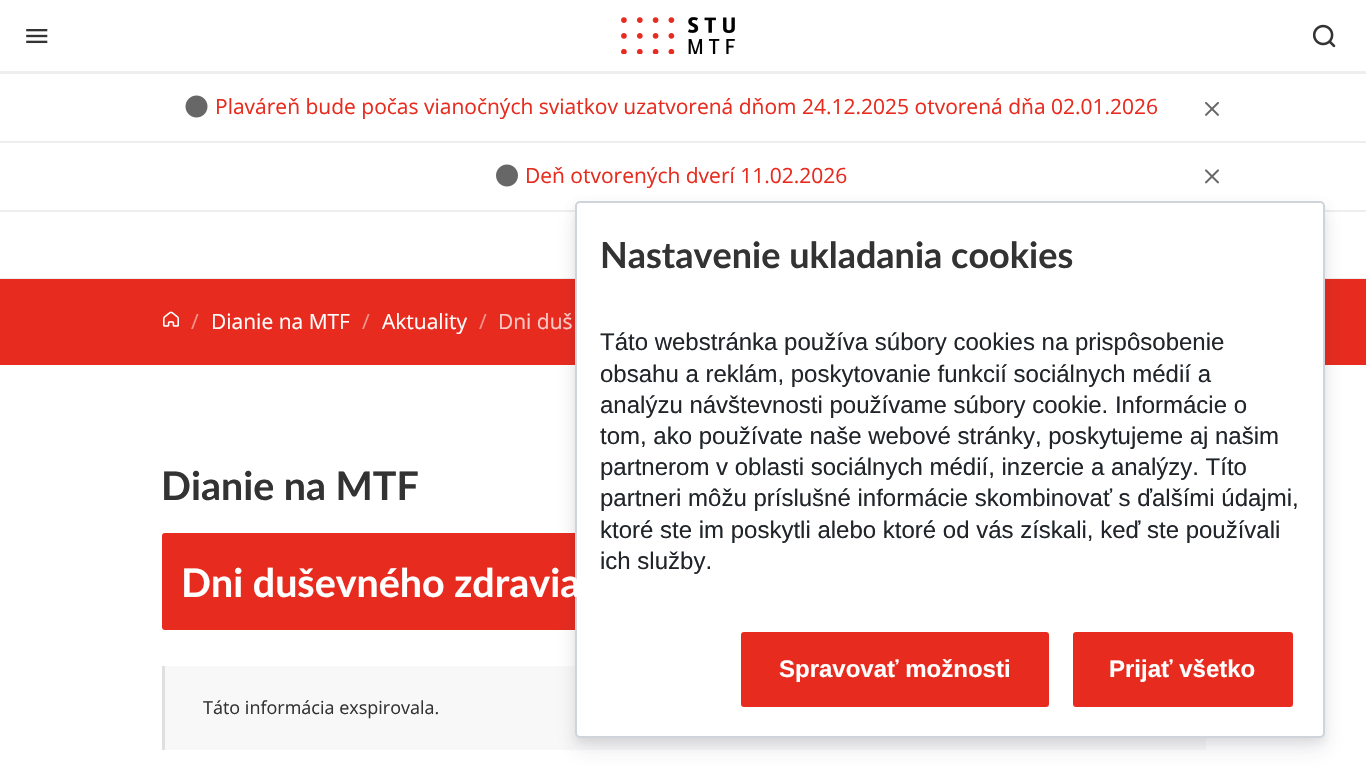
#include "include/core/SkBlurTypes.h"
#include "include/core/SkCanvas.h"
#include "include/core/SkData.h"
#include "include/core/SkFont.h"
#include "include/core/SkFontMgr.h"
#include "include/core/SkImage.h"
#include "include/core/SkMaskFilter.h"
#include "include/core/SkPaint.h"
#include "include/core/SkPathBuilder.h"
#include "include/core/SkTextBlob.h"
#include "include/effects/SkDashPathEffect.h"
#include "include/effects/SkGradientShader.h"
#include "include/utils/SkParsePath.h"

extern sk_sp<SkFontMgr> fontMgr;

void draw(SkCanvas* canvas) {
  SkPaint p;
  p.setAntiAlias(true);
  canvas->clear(SK_ColorWHITE);
  canvas->drawImageRect(SkImages::DeferredFromEncodedData(SkData::MakeFromFileName("images/1.png")), SkRect::MakeLTRB(26, 29, 48, 44), SkSamplingOptions());
  canvas->drawImageRect(SkImages::DeferredFromEncodedData(SkData::MakeFromFileName("images/2.png")), SkRect::MakeLTRB(621, 17, 735, 54), SkSamplingOptions());
  canvas->drawImageRect(SkImages::DeferredFromEncodedData(SkData::MakeFromFileName("images/3.png")), SkRect::MakeLTRB(1313, 24, 1336, 48), SkSamplingOptions());
  p.setColor(SkColorSetRGB(238, 238, 238));
  canvas->drawRect(SkRect::MakeLTRB(0, 278, 1366, 279), p);
  canvas->drawRect(SkRect::MakeLTRB(0, 71, 1366, 74), p);
  canvas->drawImageRect(SkImages::DeferredFromEncodedData(SkData::MakeFromFileName("images/4.png")), SkRect::MakeLTRB(185, 95, 208, 118), SkSamplingOptions());
  canvas->drawImageRect(SkImages::DeferredFromEncodedData(SkData::MakeFromFileName("images/5.png")), SkRect::MakeLTRB(1205, 102, 1219, 116), SkSamplingOptions());
  canvas->drawRect(SkRect::MakeLTRB(0, 141, 1366, 143), p);
  canvas->drawImageRect(SkImages::DeferredFromEncodedData(SkData::MakeFromFileName("images/6.png")), SkRect::MakeLTRB(496, 164, 518, 187), SkSamplingOptions());
  canvas->drawImageRect(SkImages::DeferredFromEncodedData(SkData::MakeFromFileName("images/7.png")), SkRect::MakeLTRB(1205, 169, 1219, 184), SkSamplingOptions());
  canvas->drawRect(SkRect::MakeLTRB(0, 210, 1366, 212), p);
  p.setColor(SkColorSetRGB(231, 43, 30));
  canvas->drawRect(SkRect::MakeLTRB(0, 279, 1366, 365), p);
  canvas->drawImageRect(SkImages::DeferredFromEncodedData(SkData::MakeFromFileName("images/8.png")), SkRect::MakeLTRB(163, 311, 179, 327), SkSamplingOptions());
  canvas->drawRoundRect(SkRect::MakeLTRB(163, 534, 1205, 629), 2, 2, p);
  p.setStyle(SkPaint::kStroke_Style);
  p.setStrokeWidth(2);
  canvas->drawRoundRect(SkRect::MakeLTRB(163, 534, 1205, 629), 2, 2, p);
  p.setStyle(SkPaint::kFill_Style);
  p.setColor(SkColorSetRGB(248, 248, 248));
  canvas->drawRect(SkRect::MakeLTRB(165, 666, 1206, 750), p);
  p.setColor(SkColorSetARGB(18, 0, 0, 0));
  p.setMaskFilter(SkMaskFilter::MakeBlur(kNormal_SkBlurStyle, 4.5f));
  canvas->drawRoundRect(SkRect::MakeLTRB(575, 206, 1325, 743), 5, 5, p);
  p.setMaskFilter(nullptr);
  p.setColor(SkColorSetARGB(26, 50, 50, 93));
  p.setMaskFilter(SkMaskFilter::MakeBlur(kNormal_SkBlurStyle, 10.5f));
  canvas->drawRoundRect(SkRect::MakeLTRB(575, 212, 1325, 749), 5, 5, p);
  p.setMaskFilter(nullptr);
  p.setColor(SK_ColorWHITE);
  canvas->drawRoundRect(SkRect::MakeLTRB(576, 202, 1324, 737), 4, 4, p);
  p.setStyle(SkPaint::kStroke_Style);
  p.setColor(SkColorSetRGB(206, 212, 218));
  canvas->drawRoundRect(SkRect::MakeLTRB(576, 202, 1324, 737), 4, 4, p);
  p.setStyle(SkPaint::kFill_Style);
  p.setColor(SkColorSetRGB(231, 43, 30));
  canvas->drawRoundRect(SkRect::MakeLTRB(742, 633, 1048, 706), 2, 2, p);
  p.setStyle(SkPaint::kStroke_Style);
  canvas->drawRoundRect(SkRect::MakeLTRB(742, 633, 1048, 706), 2, 2, p);
  p.setStyle(SkPaint::kFill_Style);
  canvas->drawRoundRect(SkRect::MakeLTRB(1074, 633, 1292, 706), 2, 2, p);
  p.setStyle(SkPaint::kStroke_Style);
  canvas->drawRoundRect(SkRect::MakeLTRB(1074, 633, 1292, 706), 2, 2, p);
  p.setStyle(SkPaint::kFill_Style);
  p.setColor(SkColorSetRGB(223, 223, 223));
  canvas->drawRect(SkRect::MakeLTRB(162, 666, 165, 750), p);
  SkFont font1(fontMgr->matchFamilyStyle("Open Sans", SkFontStyle::Normal()), 21);
  font1.setSubpixel(true);
  p.setColor(SkColorSetRGB(231, 43, 30));
  canvas->drawString("Plaváreň bude počas vianočných sviatkov uzatvorená dňom 24.12.2025 otvorená dňa 02.01.2026", 215, 114, font1, p);
  canvas->drawString("Deň otvorených dverí 11.02.2026", 525, 183, font1, p);
  p.setColor(SkColorSetRGB(243, 149, 143));
  canvas->drawString("/", 191, 329, font1, p);
  p.setColor(SK_ColorWHITE);
  canvas->drawString("Dianie na MTF", 211, 329, font1, p);
  p.setColor(SkColorSetRGB(243, 149, 143));
  canvas->drawString("/", 362, 329, font1, p);
  p.setColor(SK_ColorWHITE);
  canvas->drawString("Aktuality", 382, 329, font1, p);
  p.setColor(SkColorSetRGB(243, 149, 143));
  canvas->drawString("/", 479, 329, font1, p);
  p.setColor(SkColorSetRGB(249, 202, 199));
  canvas->drawString("Dni duš", 498, 329, font1, p);
  SkFont font2(fontMgr->matchFamilyStyle("Lato", SkFontStyle::Bold()), 36);
  font2.setSubpixel(true);
  p.setColor(SkColorSetRGB(51, 51, 51));
  canvas->drawString("Nastavenie ukladania cookies", 600, 268, font2, p);
  SkFont font3(fontMgr->matchFamilyStyle("Liberation Sans", SkFontStyle::Normal()), 24);
  font3.setSubpixel(true);
  p.setColor(SkColorSetRGB(33, 37, 41));
  canvas->drawString("Táto webstránka používa súbory cookies na prispôsobenie", 600, 350, font3, p);
  canvas->drawString("obsahu a reklám, poskytovanie funkcií sociálnych médií a", 600, 382, font3, p);
  canvas->drawString("analýzu návštevnosti používame súbory cookie. Informácie o", 600, 413, font3, p);
  canvas->drawString("tom, ako používate naše webové stránky, poskytujeme aj našim", 600, 444, font3, p);
  canvas->drawString("partnerom v oblasti sociálnych médií, inzercie a analýzy. Títo", 600, 475, font3, p);
  canvas->drawString("partneri môžu príslušné informácie skombinovať s ďalšími údajmi,", 600, 506, font3, p);
  canvas->drawString("ktoré ste im poskytli alebo ktoré od vás získali, keď ste používali", 600, 538, font3, p);
  canvas->drawString("ich služby.", 600, 569, font3, p);
  SkFont font4(fontMgr->matchFamilyStyle("Liberation Sans", SkFontStyle::Bold()), 24);
  font4.setSubpixel(true);
  p.setColor(SK_ColorWHITE);
  canvas->drawString("Spravovať možnosti", 779, 677, font4, p);
  canvas->drawString("Prijať všetko", 1109, 677, font4, p);
  SkFont font5(fontMgr->matchFamilyStyle("Lato", SkFontStyle::Bold()), 39.4f);
  font5.setSubpixel(true);
  p.setColor(SkColorSetRGB(51, 51, 51));
  canvas->drawString("Dianie na MTF", 161, 500, font5, p);
  p.setColor(SK_ColorWHITE);
  canvas->drawString("Dni duševného zdravia", 181, 597, font5, p);
  SkFont font6(fontMgr->matchFamilyStyle("Open Sans", SkFontStyle::Normal()), 18);
  font6.setSubpixel(true);
  p.setColor(SkColorSetRGB(51, 51, 51));
  canvas->drawString("Táto informácia exspirovala.", 203, 714, font6, p);
}
